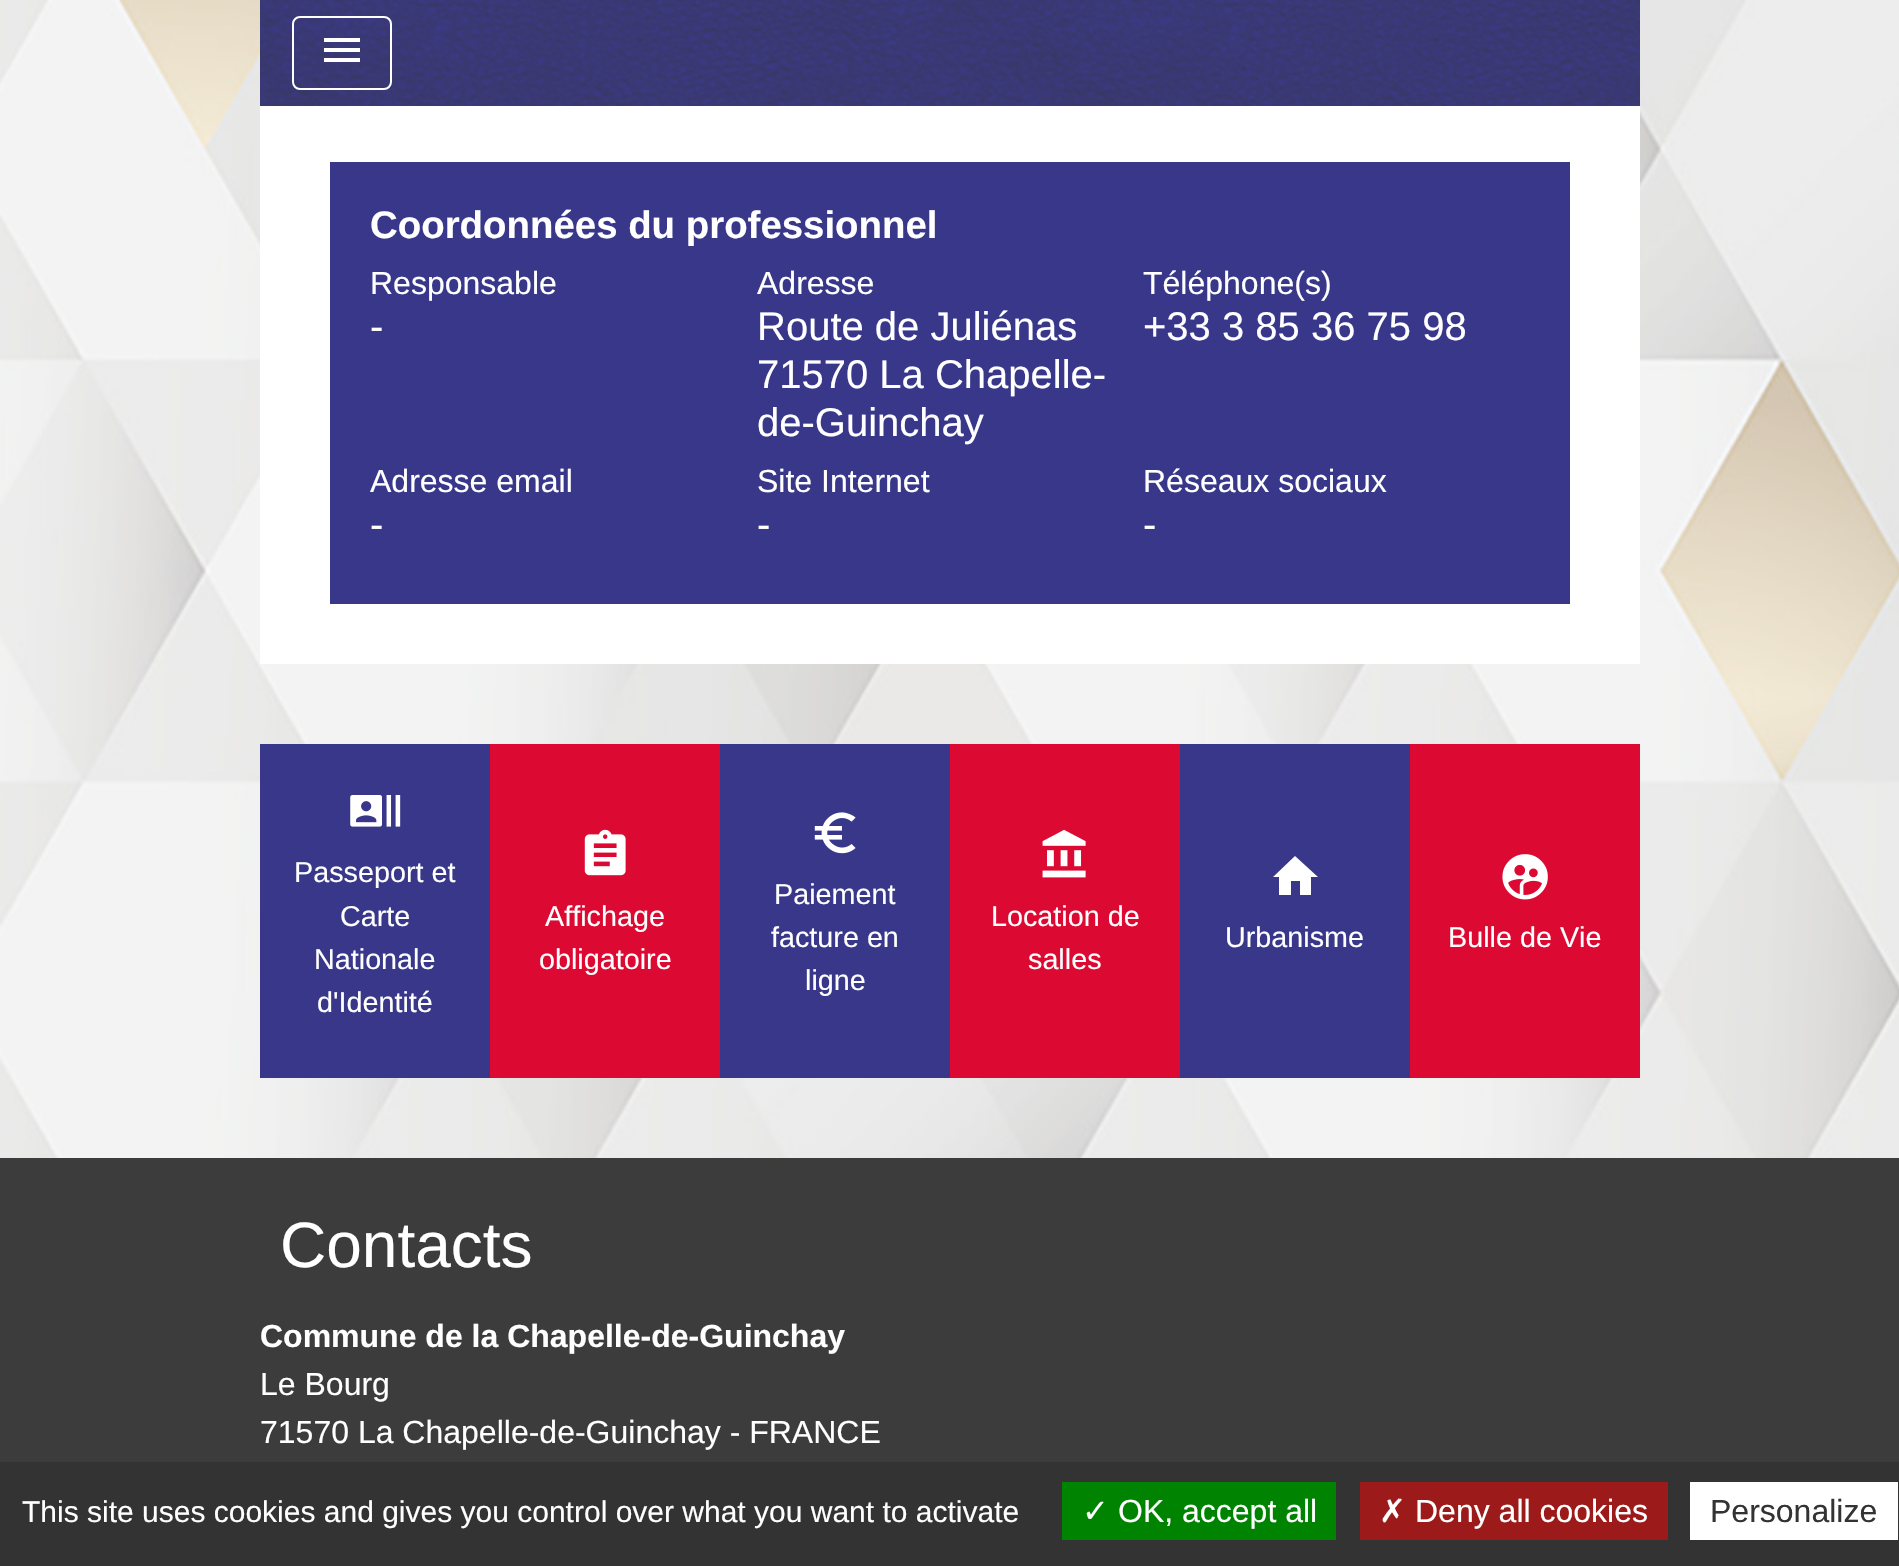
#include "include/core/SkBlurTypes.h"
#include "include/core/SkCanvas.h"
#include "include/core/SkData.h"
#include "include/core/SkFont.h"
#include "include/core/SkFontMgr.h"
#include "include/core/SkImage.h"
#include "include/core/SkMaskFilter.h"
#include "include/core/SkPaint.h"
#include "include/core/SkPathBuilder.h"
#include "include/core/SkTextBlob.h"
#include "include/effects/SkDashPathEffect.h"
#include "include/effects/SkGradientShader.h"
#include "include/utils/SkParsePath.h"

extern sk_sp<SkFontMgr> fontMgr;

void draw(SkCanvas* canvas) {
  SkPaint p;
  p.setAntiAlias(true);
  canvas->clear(SK_ColorWHITE);
  canvas->drawImageRect(SkImages::DeferredFromEncodedData(SkData::MakeFromFileName("images/1.png")), SkRect::MakeLTRB(0, 0, 1899, 1158), SkSamplingOptions());
  p.setColor(SkColorSetRGB(56, 55, 138));
  canvas->drawRect(SkRect::MakeLTRB(260, 0, 1640, 106), p);
  canvas->drawImageRect(SkImages::DeferredFromEncodedData(SkData::MakeFromFileName("images/2.png")), SkRect::MakeLTRB(260, 0, 1640, 106), SkSamplingOptions());
  p.setStyle(SkPaint::kStroke_Style);
  p.setStrokeWidth(2);
  p.setColor(SK_ColorWHITE);
  canvas->drawRoundRect(SkRect::MakeLTRB(293, 17, 391, 89), 7, 7, p);
  p.setStyle(SkPaint::kFill_Style);
  canvas->drawPath(SkPathBuilder().moveTo(324, 38).lineTo(360, 38).lineTo(360, 42).lineTo(324, 42).close().moveTo(324, 52).lineTo(324, 48).lineTo(360, 48).lineTo(360, 52).close().moveTo(324, 62).lineTo(324, 58).lineTo(360, 58).lineTo(360, 62).close().detach(), p);
  canvas->drawRect(SkRect::MakeLTRB(260, 106, 1640, 664), p);
  p.setColor(SkColorSetRGB(56, 55, 138));
  canvas->drawRect(SkRect::MakeLTRB(330, 162, 1570, 604), p);
  canvas->drawRect(SkRect::MakeLTRB(260, 744, 490, 1078), p);
  canvas->drawImageRect(SkImages::DeferredFromEncodedData(SkData::MakeFromFileName("images/3.png")), SkRect::MakeLTRB(350, 795, 401, 827), SkSamplingOptions());
  p.setColor(SkColorSetRGB(220, 10, 50));
  canvas->drawRect(SkRect::MakeLTRB(490, 744, 720, 1078), p);
  canvas->drawImageRect(SkImages::DeferredFromEncodedData(SkData::MakeFromFileName("images/4.png")), SkRect::MakeLTRB(584, 829, 626, 876), SkSamplingOptions());
  p.setColor(SkColorSetRGB(56, 55, 138));
  canvas->drawRect(SkRect::MakeLTRB(720, 744, 950, 1078), p);
  canvas->drawImageRect(SkImages::DeferredFromEncodedData(SkData::MakeFromFileName("images/5.png")), SkRect::MakeLTRB(814, 812, 856, 854), SkSamplingOptions());
  p.setColor(SkColorSetRGB(220, 10, 50));
  canvas->drawRect(SkRect::MakeLTRB(950, 744, 1180, 1078), p);
  canvas->drawImageRect(SkImages::DeferredFromEncodedData(SkData::MakeFromFileName("images/6.png")), SkRect::MakeLTRB(1042, 829, 1086, 878), SkSamplingOptions());
  p.setColor(SkColorSetRGB(56, 55, 138));
  canvas->drawRect(SkRect::MakeLTRB(1180, 744, 1410, 1078), p);
  p.setColor(SK_ColorWHITE);
  canvas->drawPath(SkPathBuilder().moveTo(1291, 895).lineTo(1279, 895).lineTo(1279, 877).lineTo(1273, 877).lineTo(1295, 856).lineTo(1318, 877).lineTo(1311, 877).lineTo(1311, 895).lineTo(1300, 895).lineTo(1300, 881).lineTo(1291, 881).close().detach(), p);
  p.setColor(SkColorSetRGB(220, 10, 50));
  canvas->drawRect(SkRect::MakeLTRB(1410, 744, 1640, 1078), p);
  canvas->drawImageRect(SkImages::DeferredFromEncodedData(SkData::MakeFromFileName("images/7.png")), SkRect::MakeLTRB(1502, 854, 1548, 900), SkSamplingOptions());
  p.setColor(SkColorSetRGB(60, 60, 60));
  canvas->drawRect(SkRect::MakeLTRB(0, 1158, 1899, 1462), p);
  p.setColor(SkColorSetRGB(51, 51, 51));
  canvas->drawRect(SkRect::MakeLTRB(0, 1462, 1899, 1566), p);
  p.setColor(SkColorSetRGB(0, 131, 0));
  canvas->drawRect(SkRect::MakeLTRB(1062, 1482, 1336, 1540), p);
  p.setColor(SkColorSetRGB(156, 26, 26));
  canvas->drawRect(SkRect::MakeLTRB(1360, 1482, 1668, 1540), p);
  p.setColor(SK_ColorWHITE);
  canvas->drawRect(SkRect::MakeLTRB(1690, 1482, 1898, 1540), p);
  SkFont font1(fontMgr->matchFamilyStyle("Liberation Sans", SkFontStyle::Bold()), 38.4f);
  font1.setSubpixel(true);
  canvas->drawString("Coordonnées du professionnel", 370, 238, font1, p);
  SkFont font2(fontMgr->matchFamilyStyle("Liberation Sans", SkFontStyle::Normal()), 32);
  font2.setSubpixel(true);
  canvas->drawString("Responsable", 370, 294, font2, p);
  SkFont font3(fontMgr->matchFamilyStyle("Liberation Sans", SkFontStyle::Normal()), 40);
  font3.setSubpixel(true);
  canvas->drawString("-", 370, 340, font3, p);
  canvas->drawString("Adresse", 757, 294, font2, p);
  canvas->drawString("Route de Juliénas", 757, 340, font3, p);
  canvas->drawString("71570 La Chapelle-", 757, 388, font3, p);
  canvas->drawString("de-Guinchay", 757, 436, font3, p);
  canvas->drawString("Téléphone(s)", 1143, 294, font2, p);
  canvas->drawString("+33 3 85 36 75 98", 1143, 340, font3, p);
  canvas->drawString("Adresse email", 370, 492, font2, p);
  canvas->drawString("-", 370, 538, font3, p);
  canvas->drawString("Site Internet", 757, 492, font2, p);
  canvas->drawString("-", 757, 538, font3, p);
  canvas->drawString("Réseaux sociaux", 1143, 492, font2, p);
  canvas->drawString("-", 1143, 538, font3, p);
  SkFont font4(fontMgr->matchFamilyStyle("Liberation Sans", SkFontStyle::Normal()), 28.75f);
  font4.setSubpixel(true);
  canvas->drawString("Passeport et", 294, 882, font4, p);
  canvas->drawString("Carte", 340, 926, font4, p);
  canvas->drawString("Nationale", 314, 969, font4, p);
  canvas->drawString("d'Identité", 317, 1012, font4, p);
  canvas->drawString("Affichage", 545, 926, font4, p);
  canvas->drawString("obligatoire", 539, 969, font4, p);
  canvas->drawString("Paiement", 774, 904, font4, p);
  canvas->drawString("facture en", 771, 947, font4, p);
  canvas->drawString("ligne", 805, 990, font4, p);
  canvas->drawString("Location de", 991, 926, font4, p);
  canvas->drawString("salles", 1028, 969, font4, p);
  canvas->drawString("Urbanisme", 1225, 947, font4, p);
  canvas->drawString("Bulle de Vie", 1448, 947, font4, p);
  SkFont font5(fontMgr->matchFamilyStyle("Liberation Sans", SkFontStyle::Normal()), 64);
  font5.setSubpixel(true);
  canvas->drawString("Contacts", 280, 1267, font5, p);
  SkFont font6(fontMgr->matchFamilyStyle("Liberation Sans", SkFontStyle::Bold()), 32);
  font6.setSubpixel(true);
  canvas->drawString("Commune de la Chapelle-de-Guinchay", 260, 1347, font6, p);
  canvas->drawString("Le Bourg", 260, 1395, font2, p);
  canvas->drawString("71570 La Chapelle-de-Guinchay - FRANCE", 260, 1443, font2, p);
  SkFont font7(fontMgr->matchFamilyStyle("Liberation Sans", SkFontStyle::Normal()), 30);
  font7.setSubpixel(true);
  canvas->drawString("This site uses cookies and gives you control over what you want to activate", 22, 1522, font7, p);
  SkFont font8(fontMgr->matchFamilyStyle("DejaVu Sans", SkFontStyle::Normal()), 32);
  font8.setSubpixel(true);
  canvas->drawString("✓", 1082, 1522, font8, p);
  canvas->drawString("OK, accept all", 1118, 1522, font2, p);
  canvas->drawString("✗", 1379, 1522, font8, p);
  canvas->drawString("Deny all cookies", 1415, 1522, font2, p);
  p.setColor(SkColorSetRGB(51, 51, 51));
  canvas->drawString("Personalize", 1710, 1522, font2, p);
}
